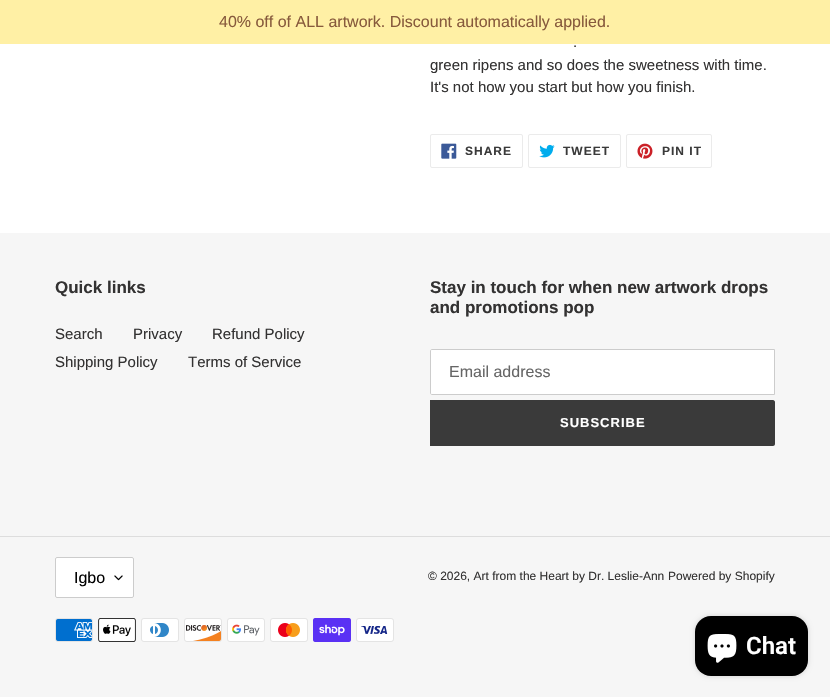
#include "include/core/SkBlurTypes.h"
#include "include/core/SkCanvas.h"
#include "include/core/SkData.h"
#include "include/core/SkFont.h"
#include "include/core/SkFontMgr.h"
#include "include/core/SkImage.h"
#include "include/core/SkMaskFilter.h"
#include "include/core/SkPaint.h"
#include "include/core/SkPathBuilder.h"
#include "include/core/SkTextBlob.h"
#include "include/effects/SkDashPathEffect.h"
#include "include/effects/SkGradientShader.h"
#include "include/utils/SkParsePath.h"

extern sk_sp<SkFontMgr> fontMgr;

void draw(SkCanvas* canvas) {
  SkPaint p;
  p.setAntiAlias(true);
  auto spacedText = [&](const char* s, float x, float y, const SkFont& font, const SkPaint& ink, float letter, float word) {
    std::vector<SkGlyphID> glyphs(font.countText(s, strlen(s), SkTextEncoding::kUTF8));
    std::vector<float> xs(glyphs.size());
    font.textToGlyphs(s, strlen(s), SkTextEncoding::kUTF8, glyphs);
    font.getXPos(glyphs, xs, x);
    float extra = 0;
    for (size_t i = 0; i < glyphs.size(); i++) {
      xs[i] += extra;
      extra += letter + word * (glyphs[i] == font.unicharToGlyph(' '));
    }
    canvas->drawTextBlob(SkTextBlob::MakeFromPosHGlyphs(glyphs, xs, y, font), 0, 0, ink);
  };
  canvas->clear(SK_ColorWHITE);
  p.setColor(SkColorSetRGB(255, 240, 165));
  canvas->drawRect(SkRect::MakeLTRB(0, 0, 830, 44), p);
  p.setStyle(SkPaint::kStroke_Style);
  p.setStrokeWidth(1);
  p.setColor(SkColorSetRGB(235, 235, 235));
  canvas->drawRoundRect(SkRect::MakeLTRB(430.5f, 134.5f, 522.5f, 167.5f), 1.5f, 1.5f, p);
  canvas->drawImageRect(SkImages::DeferredFromEncodedData(SkData::MakeFromFileName("images/1.png")), SkRect::MakeLTRB(441, 143, 457, 159), SkSamplingOptions());
  canvas->drawRoundRect(SkRect::MakeLTRB(528.5f, 134.5f, 620.5f, 167.5f), 1.5f, 1.5f, p);
  canvas->drawImageRect(SkImages::DeferredFromEncodedData(SkData::MakeFromFileName("images/2.png")), SkRect::MakeLTRB(539, 144, 555, 158), SkSamplingOptions());
  canvas->drawRoundRect(SkRect::MakeLTRB(626.5f, 134.5f, 711.5f, 167.5f), 1.5f, 1.5f, p);
  canvas->drawImageRect(SkImages::DeferredFromEncodedData(SkData::MakeFromFileName("images/3.png")), SkRect::MakeLTRB(637, 143, 653, 159), SkSamplingOptions());
  p.setStyle(SkPaint::kFill_Style);
  p.setColor(SkColorSetRGB(246, 246, 246));
  canvas->drawRect(SkRect::MakeLTRB(0, 233, 830, 697), p);
  p.setColor(SK_ColorWHITE);
  canvas->drawPath(SkPathBuilder().moveTo(432, 349.5f).lineTo(774.5f, 349.5f).lineTo(774.5f, 394.5f).lineTo(432, 394.5f).cubicTo(431, 394.5f, 430.5f, 394, 430.5f, 393).lineTo(430.5f, 351).cubicTo(430.5f, 350, 431, 349.5f, 432, 349.5f).close().detach(), p);
  p.setStyle(SkPaint::kStroke_Style);
  p.setColor(SkColorSetRGB(204, 204, 204));
  canvas->drawPath(SkPathBuilder().moveTo(432, 349.5f).lineTo(774.5f, 349.5f).lineTo(774.5f, 394.5f).lineTo(432, 394.5f).cubicTo(431, 394.5f, 430.5f, 394, 430.5f, 393).lineTo(430.5f, 351).cubicTo(430.5f, 350, 431, 349.5f, 432, 349.5f).close().detach(), p);
  p.setStyle(SkPaint::kFill_Style);
  p.setColor(SkColorSetRGB(58, 58, 58));
  canvas->drawPath(SkPathBuilder().moveTo(430, 400).lineTo(773, 400).cubicTo(774, 400, 775, 401, 775, 402).lineTo(775, 444).cubicTo(775, 445, 774, 446, 773, 446).lineTo(430, 446).close().detach(), p);
  p.setColor(SkColorSetRGB(221, 221, 221));
  canvas->drawRect(SkRect::MakeLTRB(0, 536, 830, 537), p);
  p.setColor(SK_ColorWHITE);
  canvas->drawRoundRect(SkRect::MakeLTRB(55, 557, 134, 598), 2, 2, p);
  canvas->drawImageRect(SkImages::DeferredFromEncodedData(SkData::MakeFromFileName("images/4.png")), SkRect::MakeLTRB(114, 575, 123, 581), SkSamplingOptions());
  p.setStyle(SkPaint::kStroke_Style);
  p.setColor(SkColorSetRGB(204, 204, 204));
  canvas->drawRoundRect(SkRect::MakeLTRB(55.5f, 557.5f, 133.5f, 597.5f), 1.5f, 1.5f, p);
  canvas->drawImageRect(SkImages::DeferredFromEncodedData(SkData::MakeFromFileName("images/5.png")), SkRect::MakeLTRB(55, 618, 93, 642), SkSamplingOptions());
  canvas->drawImageRect(SkImages::DeferredFromEncodedData(SkData::MakeFromFileName("images/6.png")), SkRect::MakeLTRB(98, 618, 136, 642), SkSamplingOptions());
  canvas->drawImageRect(SkImages::DeferredFromEncodedData(SkData::MakeFromFileName("images/7.png")), SkRect::MakeLTRB(141, 618, 179, 642), SkSamplingOptions());
  canvas->drawImageRect(SkImages::DeferredFromEncodedData(SkData::MakeFromFileName("images/8.png")), SkRect::MakeLTRB(184, 618, 222, 642), SkSamplingOptions());
  canvas->drawImageRect(SkImages::DeferredFromEncodedData(SkData::MakeFromFileName("images/9.png")), SkRect::MakeLTRB(227, 618, 265, 642), SkSamplingOptions());
  canvas->drawImageRect(SkImages::DeferredFromEncodedData(SkData::MakeFromFileName("images/10.png")), SkRect::MakeLTRB(270, 618, 308, 642), SkSamplingOptions());
  canvas->drawImageRect(SkImages::DeferredFromEncodedData(SkData::MakeFromFileName("images/11.png")), SkRect::MakeLTRB(313, 618, 351, 642), SkSamplingOptions());
  canvas->drawImageRect(SkImages::DeferredFromEncodedData(SkData::MakeFromFileName("images/12.png")), SkRect::MakeLTRB(356, 618, 394, 642), SkSamplingOptions());
  p.setStyle(SkPaint::kFill_Style);
  p.setColor(SkColorSetARGB(38, 0, 0, 0));
  p.setMaskFilter(SkMaskFilter::MakeBlur(kNormal_SkBlurStyle, 2.5f));
  canvas->drawRoundRect(SkRect::MakeLTRB(695, 616, 808, 676), 16, 16, p);
  p.setMaskFilter(nullptr);
  p.setColor(SK_ColorBLACK);
  canvas->drawRoundRect(SkRect::MakeLTRB(695, 616, 808, 676), 16, 16, p);
  canvas->drawImageRect(SkImages::DeferredFromEncodedData(SkData::MakeFromFileName("images/13.png")), SkRect::MakeLTRB(707, 634, 737, 663), SkSamplingOptions());
  SkFont font1(fontMgr->matchFamilyStyle("Liberation Sans", SkFontStyle::Normal()), 16);
  font1.setSubpixel(true);
  p.setColor(SkColorSetRGB(135, 90, 60));
  canvas->drawString("40% off of ALL artwork. Discount automatically applied.", 219, 27, font1, p);
  SkFont font2(fontMgr->matchFamilyStyle("Liberation Sans", SkFontStyle::Normal()), 15);
  font2.setSubpixel(true);
  p.setColor(SkColorSetRGB(51, 50, 50));
  canvas->drawString(".", 573, 47, font2, p);
  canvas->drawString("green ripens and so does the sweetness with time.", 430, 70, font2, p);
  canvas->drawString("It's not how you start but how you finish.", 430, 92, font2, p);
  SkFont font3(fontMgr->matchFamilyStyle("Liberation Sans", SkFontStyle::Bold()), 12);
  font3.setSubpixel(true);
  p.setColor(SkColorSetRGB(58, 58, 58));
  spacedText("SHARE", 465, 155, font3, p, 1, 0);
  spacedText("TWEET", 563, 155, font3, p, 1, 0);
  spacedText("PIN IT", 662, 155, font3, p, 1, 0);
  SkFont font4(fontMgr->matchFamilyStyle("Liberation Sans", SkFontStyle::Bold()), 17);
  font4.setSubpixel(true);
  p.setColor(SkColorSetRGB(51, 50, 50));
  canvas->drawString("Quick links", 55, 293, font4, p);
  canvas->drawString("Search", 55, 339, font2, p);
  canvas->drawString("Privacy", 133, 339, font2, p);
  canvas->drawString("Refund Policy", 212, 339, font2, p);
  canvas->drawString("Shipping Policy", 55, 367, font2, p);
  canvas->drawString("Terms of Service", 188, 367, font2, p);
  canvas->drawString("Stay in touch for when new artwork drops", 430, 293, font4, p);
  canvas->drawString("and promotions pop", 430, 313, font4, p);
  p.setColor(SkColorSetRGB(102, 102, 102));
  canvas->drawString("Email address", 449, 377, font1, p);
  SkFont font5(fontMgr->matchFamilyStyle("Liberation Sans", SkFontStyle::Bold()), 13);
  font5.setSubpixel(true);
  p.setColor(SK_ColorWHITE);
  spacedText("SUBSCRIBE", 560, 427, font5, p, 1, 0);
  p.setColor(SK_ColorBLACK);
  canvas->drawString("Igbo", 74, 583, font1, p);
  SkFont font6(fontMgr->matchFamilyStyle("Liberation Sans", SkFontStyle::Normal()), 12);
  font6.setSubpixel(true);
  p.setColor(SkColorSetRGB(51, 50, 50));
  canvas->drawString("© 2026, Art from the Heart by Dr. Leslie-Ann", 428, 580, font6, p);
  canvas->drawString("Powered by Shopify", 668, 580, font6, p);
  SkFont font7(fontMgr->matchFamilyStyle("Roboto", SkFontStyle(600, SkFontStyle::kNormal_Width, SkFontStyle::kUpright_Slant)), 24);
  font7.setSubpixel(true);
  p.setColor(SK_ColorWHITE);
  canvas->drawString("Chat", 746, 654, font7, p);
}
